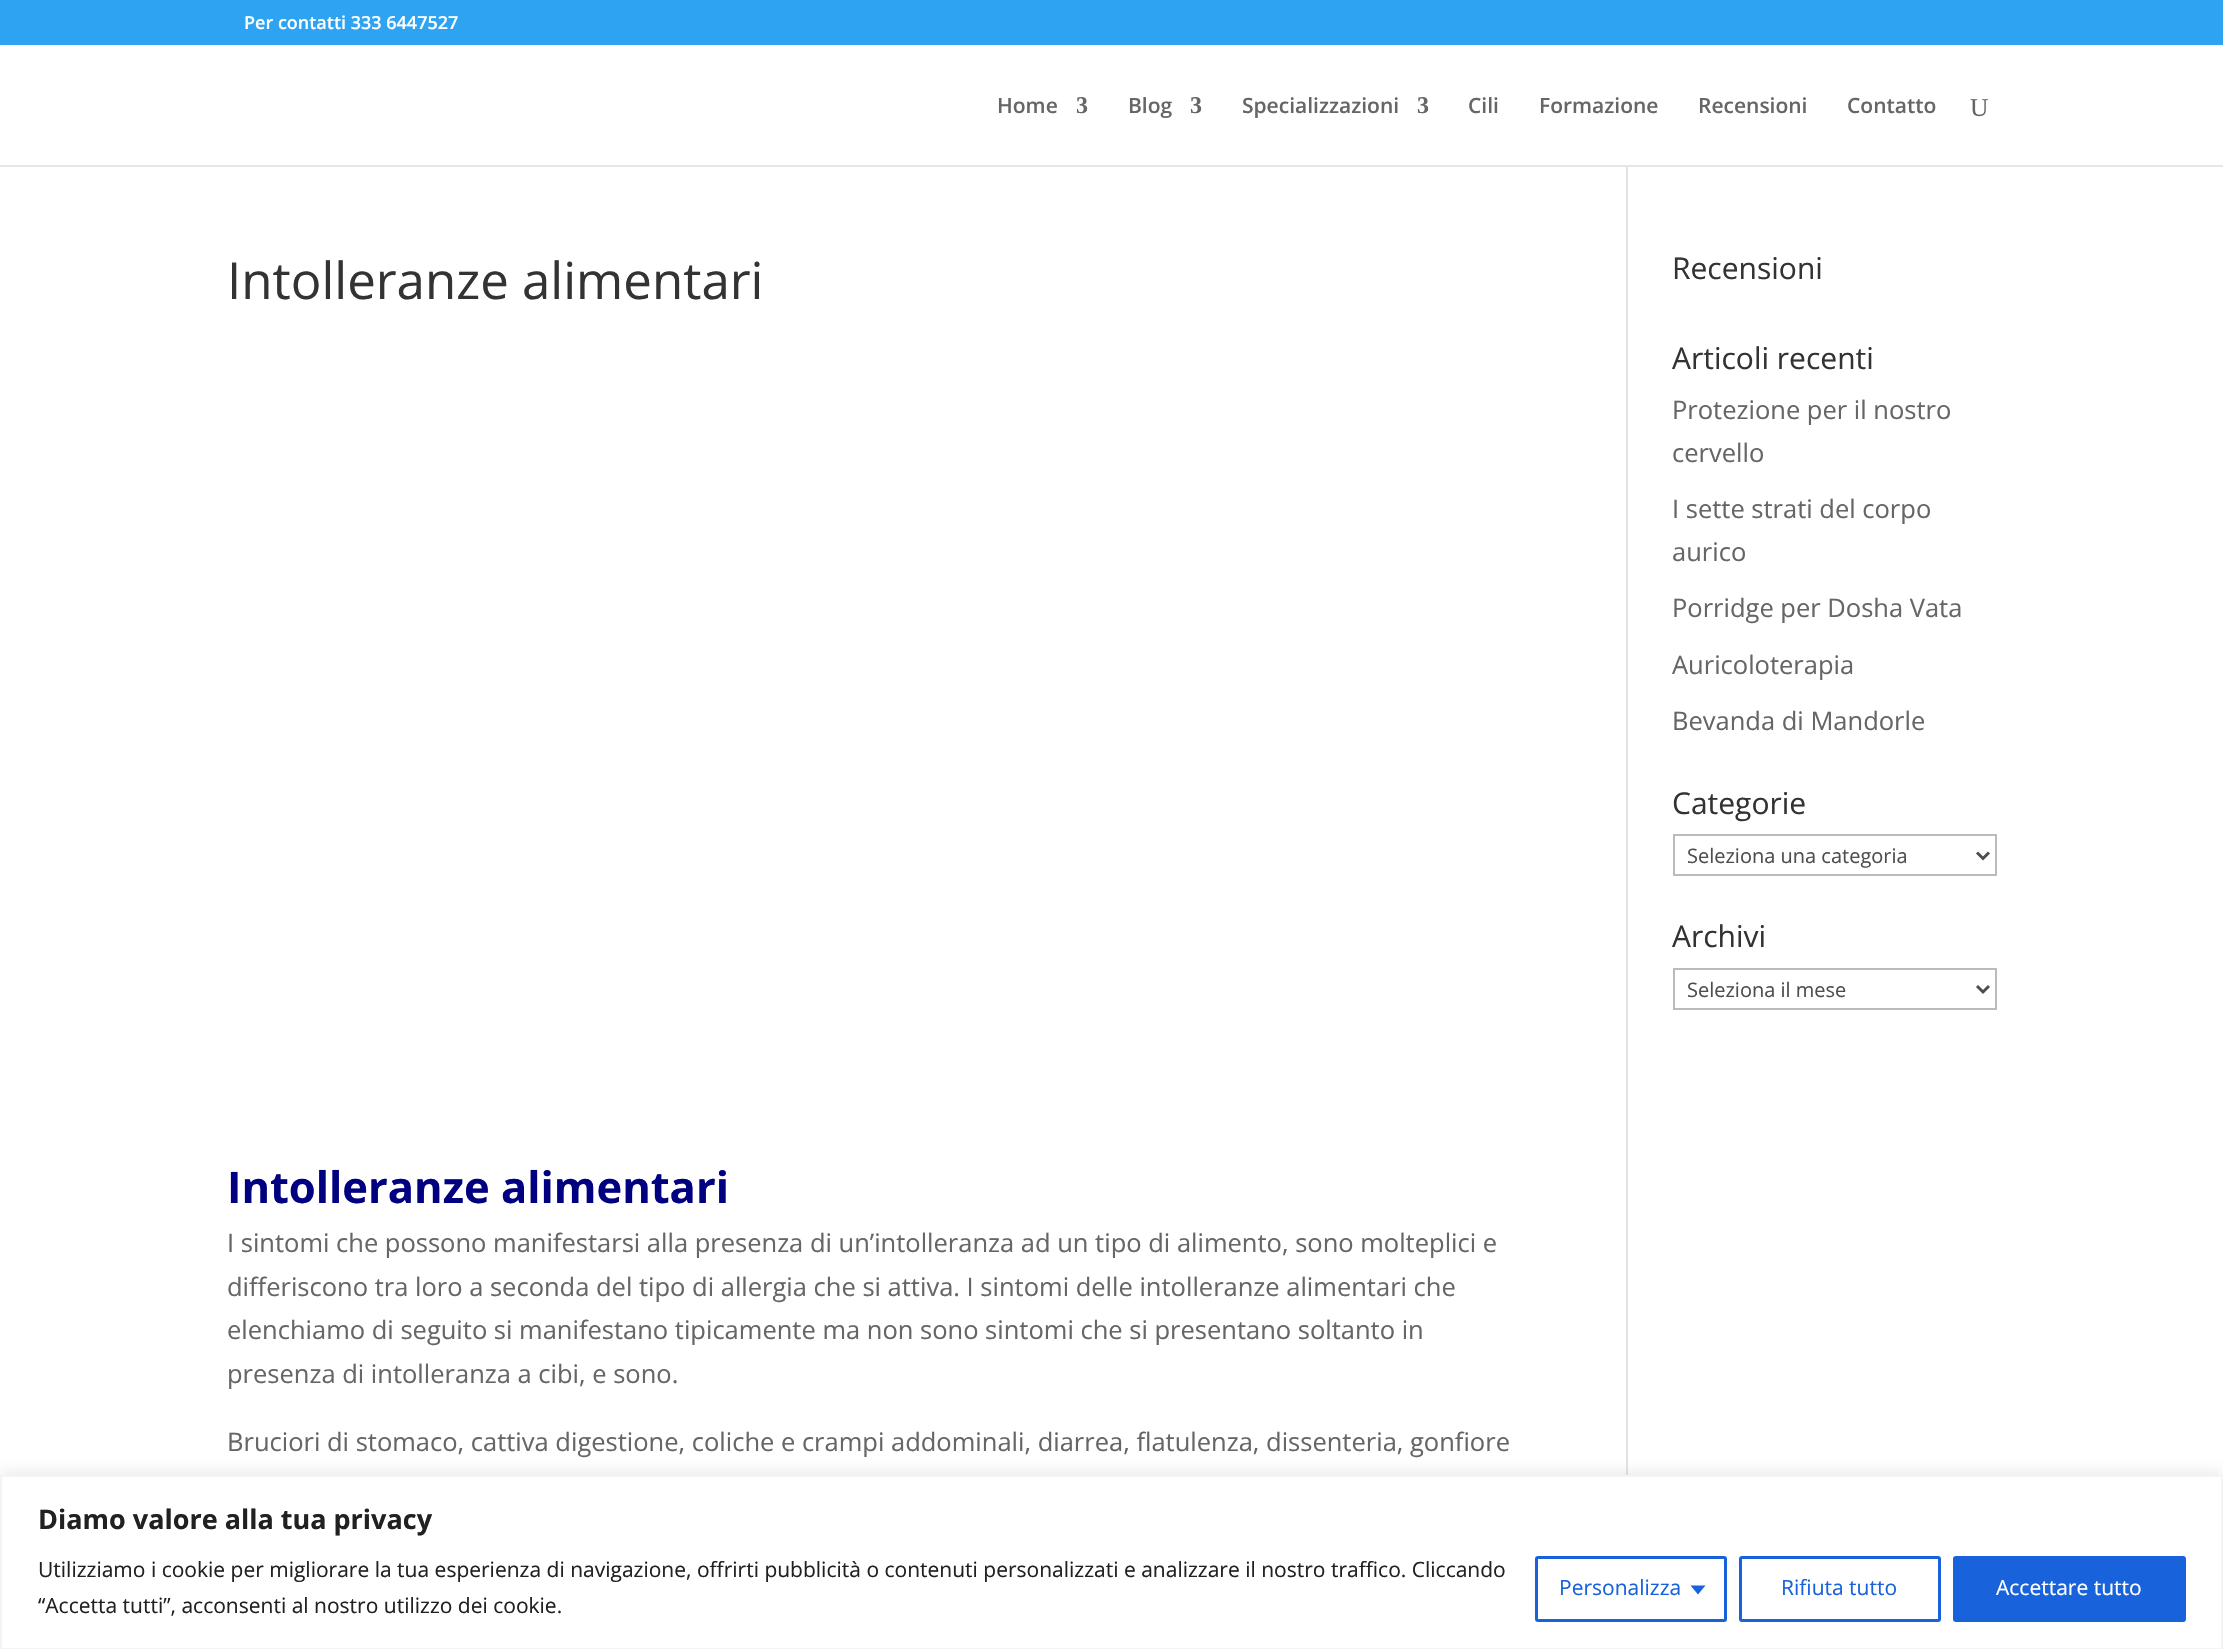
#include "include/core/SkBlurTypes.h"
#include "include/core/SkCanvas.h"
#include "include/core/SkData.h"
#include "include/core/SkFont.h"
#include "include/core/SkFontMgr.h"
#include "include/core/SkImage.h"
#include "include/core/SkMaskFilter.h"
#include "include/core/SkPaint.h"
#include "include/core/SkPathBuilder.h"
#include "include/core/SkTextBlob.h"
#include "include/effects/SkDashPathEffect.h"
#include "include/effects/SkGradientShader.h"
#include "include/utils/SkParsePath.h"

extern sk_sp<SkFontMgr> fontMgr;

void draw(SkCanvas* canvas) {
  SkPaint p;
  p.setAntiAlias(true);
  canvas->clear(SK_ColorWHITE);
  p.setColor(SkColorSetRGB(46, 163, 242));
  canvas->drawRect(SkRect::MakeLTRB(0, 0, 2223, 45), p);
  p.setColor(SkColorSetRGB(230, 230, 230));
  canvas->drawRect(SkRect::MakeLTRB(0, 165, 2223, 167), p);
  p.setColor(SkColorSetRGB(226, 226, 226));
  canvas->drawRect(SkRect::MakeLTRB(1626, 167, 1628, 1475), p);
  p.setStyle(SkPaint::kStroke_Style);
  p.setStrokeWidth(2);
  p.setColor(SkColorSetRGB(187, 187, 187));
  canvas->drawRect(SkRect::MakeLTRB(1674, 835, 1996, 875), p);
  p.setStrokeWidth(3);
  p.setColor(SkColorSetRGB(78, 78, 78));
  canvas->drawPath(SkPathBuilder().moveTo(1977, 852.5f).lineTo(1983, 858.5f).lineTo(1989, 852.5f).detach(), p);
  p.setStrokeWidth(2);
  p.setColor(SkColorSetRGB(187, 187, 187));
  canvas->drawRect(SkRect::MakeLTRB(1674, 969, 1996, 1009), p);
  p.setStrokeWidth(3);
  p.setColor(SkColorSetRGB(78, 78, 78));
  canvas->drawPath(SkPathBuilder().moveTo(1977, 986).lineTo(1983, 992).lineTo(1989, 986).detach(), p);
  p.setStyle(SkPaint::kFill_Style);
  p.setColor(SkColorSetARGB(77, 172, 171, 171));
  p.setMaskFilter(SkMaskFilter::MakeBlur(kNormal_SkBlurStyle, 7.5f));
  canvas->drawRect(SkRect::MakeLTRB(0, 1473, 2223, 1649), p);
  p.setMaskFilter(nullptr);
  p.setColor(SK_ColorWHITE);
  canvas->drawRect(SkRect::MakeLTRB(1, 1476, 2222, 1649), p);
  p.setStyle(SkPaint::kStroke_Style);
  p.setStrokeWidth(2);
  p.setColor(SkColorSetRGB(244, 244, 244));
  canvas->drawRect(SkRect::MakeLTRB(1, 1476, 2222, 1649), p);
  p.setStrokeWidth(3);
  p.setColor(SkColorSetRGB(24, 99, 220));
  canvas->drawRoundRect(SkRect::MakeLTRB(1536.5f, 1557.5f, 1725.5f, 1620.5f), 1.5f, 1.5f, p);
  p.setStyle(SkPaint::kFill_Style);
  canvas->drawPath(SkPathBuilder().moveTo(1690.5f, 1585.5f).lineTo(1705.5f, 1585.5f).lineTo(1698, 1594.5f).close().detach(), p);
  p.setStyle(SkPaint::kStroke_Style);
  canvas->drawRoundRect(SkRect::MakeLTRB(1740.5f, 1557.5f, 1939.5f, 1620.5f), 1.5f, 1.5f, p);
  p.setStyle(SkPaint::kFill_Style);
  canvas->drawRoundRect(SkRect::MakeLTRB(1954.5f, 1557.5f, 2184.5f, 1620.5f), 1.5f, 1.5f, p);
  p.setStyle(SkPaint::kStroke_Style);
  canvas->drawRoundRect(SkRect::MakeLTRB(1954.5f, 1557.5f, 2184.5f, 1620.5f), 1.5f, 1.5f, p);
  SkFont font1(fontMgr->matchFamilyStyle("Open Sans", SkFontStyle(600, SkFontStyle::kNormal_Width, SkFontStyle::kUpright_Slant)), 18);
  font1.setSubpixel(true);
  p.setStyle(SkPaint::kFill_Style);
  p.setColor(SK_ColorWHITE);
  canvas->drawString("Per contatti 333 6447527", 244, 29, font1, p);
  SkFont font2(fontMgr->matchFamilyStyle("Open Sans", SkFontStyle(600, SkFontStyle::kNormal_Width, SkFontStyle::kUpright_Slant)), 21);
  font2.setSubpixel(true);
  p.setColor(SkColorSetRGB(102, 102, 102));
  canvas->drawString("Home", 997, 113, font2, p);
  SkFont font3(fontMgr->matchFamilyStyle("Liberation Serif", SkFontStyle::Bold()), 24);
  font3.setSubpixel(true);
  canvas->drawString("3", 1076, 113, font3, p);
  canvas->drawString("Blog", 1128, 113, font2, p);
  canvas->drawString("3", 1190, 113, font3, p);
  canvas->drawString("Specializzazioni", 1242, 113, font2, p);
  canvas->drawString("3", 1417, 113, font3, p);
  canvas->drawString("Cili", 1468, 113, font2, p);
  canvas->drawString("Formazione", 1539, 113, font2, p);
  canvas->drawString("Recensioni", 1698, 113, font2, p);
  canvas->drawString("Contatto", 1847, 113, font2, p);
  SkFont font4(fontMgr->matchFamilyStyle("Liberation Serif", SkFontStyle::Normal()), 25.5f);
  font4.setSubpixel(true);
  canvas->drawString("U", 1970, 116, font4, p);
  SkFont font5(fontMgr->matchFamilyStyle("Open Sans", SkFontStyle::Normal()), 51);
  font5.setSubpixel(true);
  p.setColor(SkColorSetRGB(51, 51, 51));
  canvas->drawString("Intolleranze alimentari", 227, 299, font5, p);
  SkFont font6(fontMgr->matchFamilyStyle("Open Sans", SkFontStyle::Bold()), 43.5f);
  font6.setSubpixel(true);
  p.setColor(SkColorSetRGB(0, 0, 128));
  canvas->drawString("Intolleranze alimentari", 227, 1203, font6, p);
  SkFont font7(fontMgr->matchFamilyStyle("Open Sans", SkFontStyle::Normal()), 25.5f);
  font7.setSubpixel(true);
  p.setColor(SkColorSetRGB(102, 102, 102));
  canvas->drawString("I sintomi che possono manifestarsi alla presenza di un’intolleranza ad un tipo di alimento, sono molteplici e", 227, 1252, font7, p);
  canvas->drawString("differiscono tra loro a seconda del tipo di allergia che si attiva. I sintomi delle intolleranze alimentari che", 227, 1296, font7, p);
  canvas->drawString("elenchiamo di seguito si manifestano tipicamente ma non sono sintomi che si presentano soltanto in", 227, 1339, font7, p);
  canvas->drawString("presenza di intolleranza a cibi, e sono.", 227, 1383, font7, p);
  canvas->drawString("Bruciori di stomaco, cattiva digestione, coliche e crampi addominali, diarrea, flatulenza, dissenteria, gonfiore", 227, 1451, font7, p);
  SkFont font8(fontMgr->matchFamilyStyle("Open Sans", SkFontStyle::Normal()), 30);
  font8.setSubpixel(true);
  p.setColor(SkColorSetRGB(51, 51, 51));
  canvas->drawString("Recensioni", 1672, 279, font8, p);
  canvas->drawString("Articoli recenti", 1672, 369, font8, p);
  p.setColor(SkColorSetRGB(102, 102, 102));
  canvas->drawString("Protezione per il nostro", 1672, 419, font7, p);
  canvas->drawString("cervello", 1672, 462, font7, p);
  canvas->drawString("I sette strati del corpo", 1672, 518, font7, p);
  canvas->drawString("aurico", 1672, 561, font7, p);
  canvas->drawString("Porridge per Dosha Vata", 1672, 617, font7, p);
  canvas->drawString("Auricoloterapia", 1672, 674, font7, p);
  canvas->drawString("Bevanda di Mandorle", 1672, 730, font7, p);
  p.setColor(SkColorSetRGB(51, 51, 51));
  canvas->drawString("Categorie", 1672, 814, font8, p);
  SkFont font9(fontMgr->matchFamilyStyle("Open Sans", SkFontStyle::Normal()), 20);
  font9.setSubpixel(true);
  p.setColor(SkColorSetRGB(78, 78, 78));
  canvas->drawString("Seleziona una categoria", 1687, 863, font9, p);
  p.setColor(SkColorSetRGB(51, 51, 51));
  canvas->drawString("Archivi", 1672, 947, font8, p);
  p.setColor(SkColorSetRGB(78, 78, 78));
  canvas->drawString("Seleziona il mese", 1687, 997, font9, p);
  SkFont font10(fontMgr->matchFamilyStyle("Open Sans", SkFontStyle::Bold()), 27);
  font10.setSubpixel(true);
  p.setColor(SkColorSetRGB(33, 33, 33));
  canvas->drawString("Diamo valore alla tua privacy", 38, 1529, font10, p);
  SkFont font11(fontMgr->matchFamilyStyle("Open Sans", SkFontStyle::Normal()), 21);
  font11.setSubpixel(true);
  canvas->drawString("Utilizziamo i cookie per migliorare la tua esperienza di navigazione, offrirti pubblicità o contenuti personalizzati e analizzare il nostro traffico. Cliccando", 38, 1577, font11, p);
  canvas->drawString("“Accetta tutti”, acconsenti al nostro utilizzo dei cookie.", 38, 1613, font11, p);
  p.setColor(SkColorSetRGB(24, 99, 220));
  canvas->drawString("Personalizza", 1559, 1595, font11, p);
  canvas->drawString("Rifiuta tutto", 1781, 1595, font11, p);
  p.setColor(SK_ColorWHITE);
  canvas->drawString("Accettare tutto", 1996, 1595, font11, p);
}
